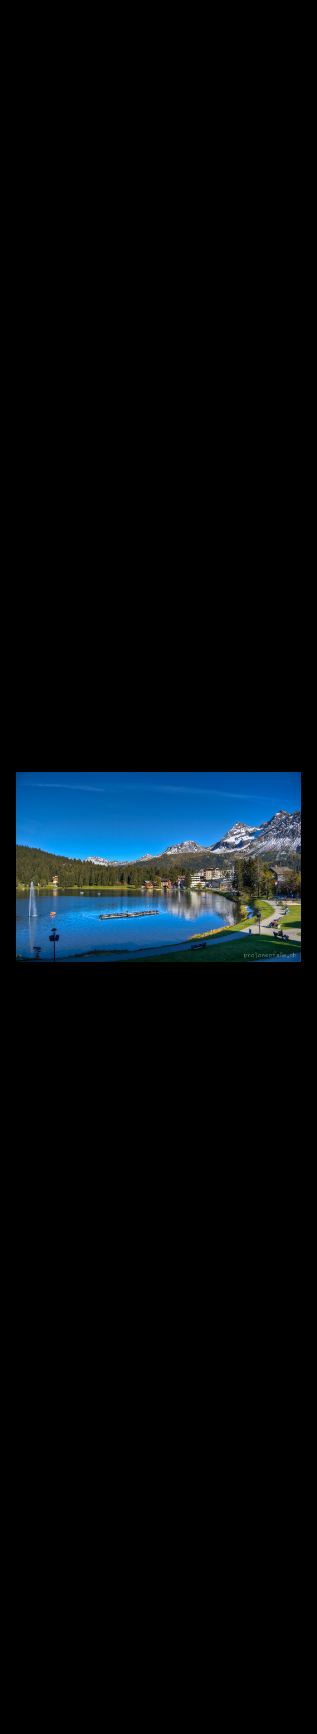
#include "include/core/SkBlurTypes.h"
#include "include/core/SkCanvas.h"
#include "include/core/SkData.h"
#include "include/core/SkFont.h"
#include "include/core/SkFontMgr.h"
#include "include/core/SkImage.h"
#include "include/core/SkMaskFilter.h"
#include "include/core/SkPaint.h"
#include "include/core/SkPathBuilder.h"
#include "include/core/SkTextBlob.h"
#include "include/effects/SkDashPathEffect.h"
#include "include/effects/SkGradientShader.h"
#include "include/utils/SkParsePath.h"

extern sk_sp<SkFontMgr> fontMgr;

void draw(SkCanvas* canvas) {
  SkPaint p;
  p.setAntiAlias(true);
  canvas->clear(SK_ColorBLACK);
  canvas->drawImageRect(SkImages::DeferredFromEncodedData(SkData::MakeFromFileName("images/1.png")), SkRect::MakeLTRB(16, 772, 301, 962), SkSamplingOptions());
}
